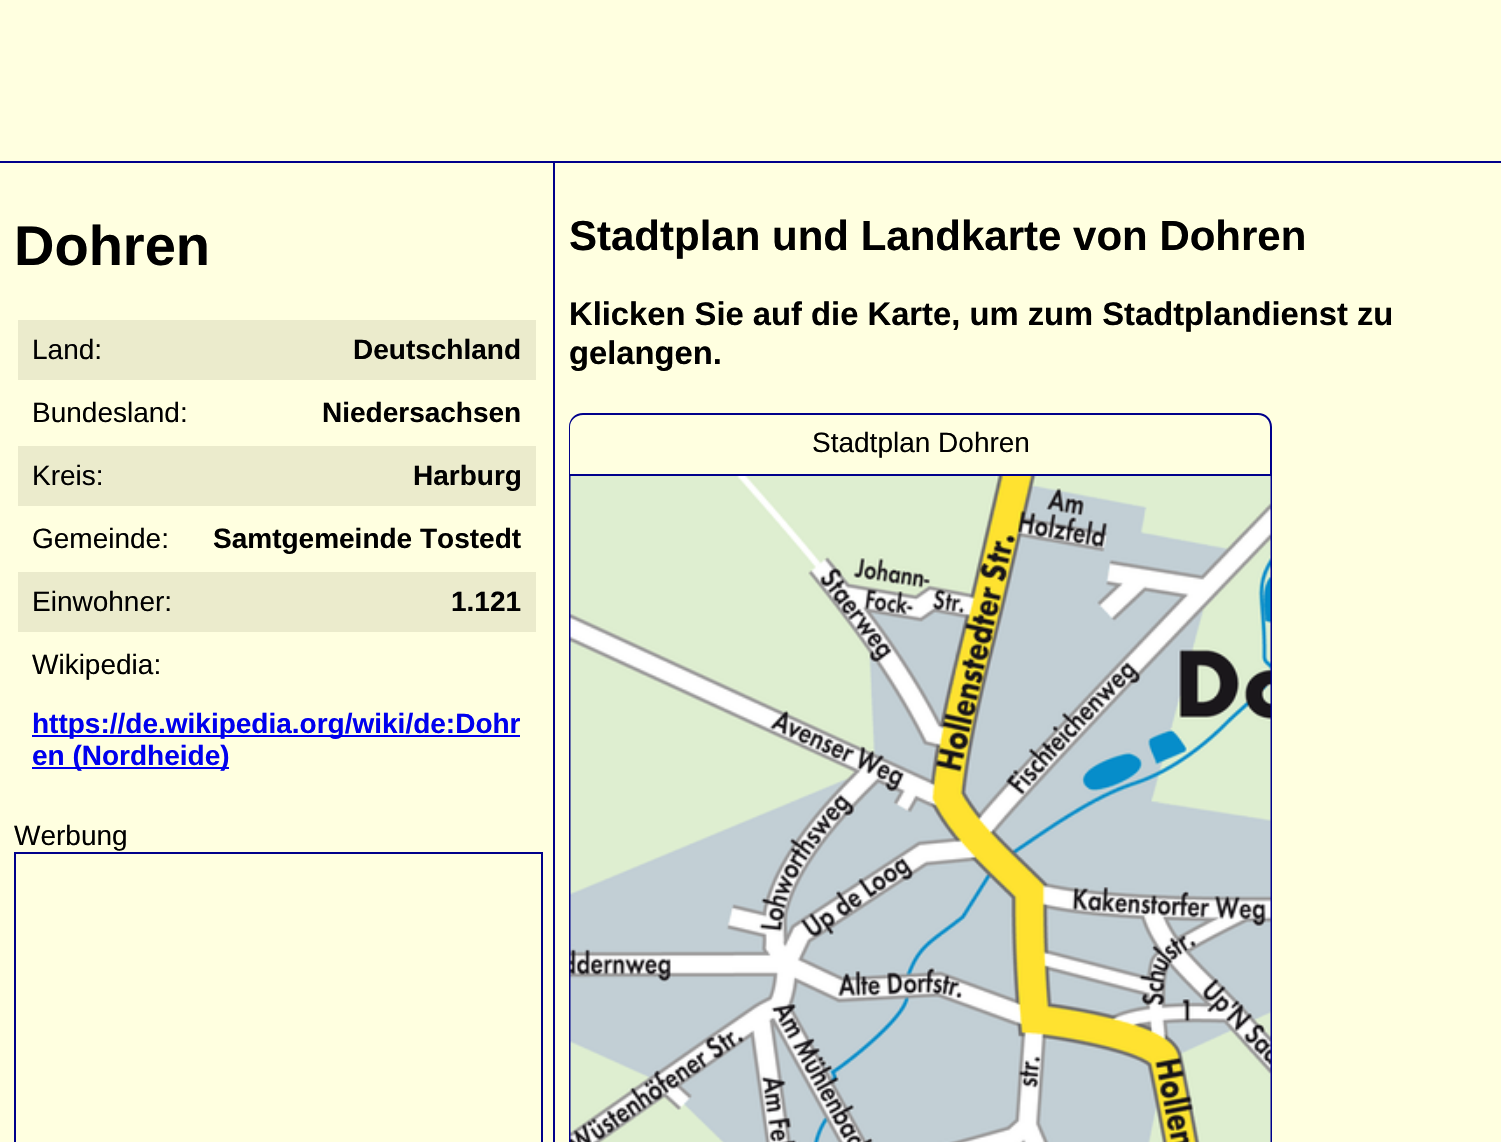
#include "include/core/SkBlurTypes.h"
#include "include/core/SkCanvas.h"
#include "include/core/SkData.h"
#include "include/core/SkFont.h"
#include "include/core/SkFontMgr.h"
#include "include/core/SkImage.h"
#include "include/core/SkMaskFilter.h"
#include "include/core/SkPaint.h"
#include "include/core/SkPathBuilder.h"
#include "include/core/SkTextBlob.h"
#include "include/effects/SkDashPathEffect.h"
#include "include/effects/SkGradientShader.h"
#include "include/utils/SkParsePath.h"

extern sk_sp<SkFontMgr> fontMgr;

void draw(SkCanvas* canvas) {
  SkPaint p;
  p.setAntiAlias(true);
  canvas->clear(SkColorSetRGB(255, 255, 224));
  p.setColor(SkColorSetRGB(0, 0, 139));
  canvas->drawRect(SkRect::MakeLTRB(0, 161, 1501, 163), p);
  canvas->drawRect(SkRect::MakeLTRB(553, 163, 555, 1142), p);
  p.setColor(SkColorSetRGB(235, 235, 204));
  canvas->drawRect(SkRect::MakeLTRB(18, 320, 536, 380), p);
  canvas->drawRect(SkRect::MakeLTRB(18, 446, 536, 506), p);
  canvas->drawRect(SkRect::MakeLTRB(18, 572, 536, 632), p);
  p.setColor(SkColorSetRGB(0, 0, 238));
  canvas->drawRect(SkRect::MakeLTRB(32, 735, 520, 737), p);
  canvas->drawRect(SkRect::MakeLTRB(32, 767, 229, 769), p);
  p.setStyle(SkPaint::kStroke_Style);
  p.setStrokeWidth(2);
  p.setColor(SkColorSetRGB(0, 0, 139));
  canvas->drawRect(SkRect::MakeLTRB(15, 853, 542, 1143), p);
  p.setStyle(SkPaint::kFill_Style);
  canvas->drawPath(SkPathBuilder(SkPathFillType::kEvenOdd).moveTo(583, 413).lineTo(1258, 413).cubicTo(1266, 413, 1272, 419, 1272, 427).lineTo(1272, 474).lineTo(569, 474).lineTo(569, 427).cubicTo(569, 419, 575, 413, 583, 413).close().moveTo(583, 415).lineTo(1258, 415).cubicTo(1265, 415, 1270, 420, 1270, 427).lineTo(1270, 474).lineTo(570, 474).lineTo(570, 427).cubicTo(570, 420, 576, 415, 583, 415).close().detach(), p);
  p.setStyle(SkPaint::kStroke_Style);
  canvas->drawRect(SkRect::MakeLTRB(570, 475, 1271, 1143), p);
  canvas->drawImageRect(SkImages::DeferredFromEncodedData(SkData::MakeFromFileName("images/1.png")), SkRect::MakeLTRB(570, 476, 1271, 1142), SkSamplingOptions());
  SkFont font1(fontMgr->matchFamilyStyle("Liberation Sans", SkFontStyle::Bold()), 56);
  font1.setSubpixel(true);
  p.setStyle(SkPaint::kFill_Style);
  p.setColor(SK_ColorBLACK);
  canvas->drawString("Dohren", 14, 265, font1, p);
  SkFont font2(fontMgr->matchFamilyStyle("Liberation Sans", SkFontStyle::Normal()), 28);
  font2.setSubpixel(true);
  canvas->drawString("Land:", 32, 359, font2, p);
  SkFont font3(fontMgr->matchFamilyStyle("Liberation Sans", SkFontStyle::Bold()), 28);
  font3.setSubpixel(true);
  canvas->drawString("Deutschland", 353, 359, font3, p);
  canvas->drawString("Bundesland:", 32, 422, font2, p);
  canvas->drawString("Niedersachsen", 322, 422, font3, p);
  canvas->drawString("Kreis:", 32, 485, font2, p);
  canvas->drawString("Harburg", 413, 485, font3, p);
  canvas->drawString("Gemeinde:", 32, 548, font2, p);
  canvas->drawString("Samtgemeinde Tostedt", 213, 548, font3, p);
  canvas->drawString("Einwohner:", 32, 611, font2, p);
  canvas->drawString("1.121", 451, 611, font3, p);
  canvas->drawString("Wikipedia:", 32, 674, font2, p);
  p.setColor(SkColorSetRGB(0, 0, 238));
  canvas->drawString("https://de.wikipedia.org/wiki/de:Dohr", 32, 733, font3, p);
  canvas->drawString("en (Nordheide)", 32, 765, font3, p);
  p.setColor(SK_ColorBLACK);
  canvas->drawString("Werbung", 14, 845, font2, p);
  SkFont font4(fontMgr->matchFamilyStyle("Liberation Sans", SkFontStyle::Bold()), 42);
  font4.setSubpixel(true);
  canvas->drawString("Stadtplan und Landkarte von Dohren", 569, 250, font4, p);
  SkFont font5(fontMgr->matchFamilyStyle("Liberation Sans", SkFontStyle::Bold()), 32.75f);
  font5.setSubpixel(true);
  canvas->drawString("Klicken Sie auf die Karte, um zum Stadtplandienst zu", 569, 325, font5, p);
  canvas->drawString("gelangen.", 569, 364, font5, p);
  canvas->drawString("Stadtplan Dohren", 812, 452, font2, p);
}
